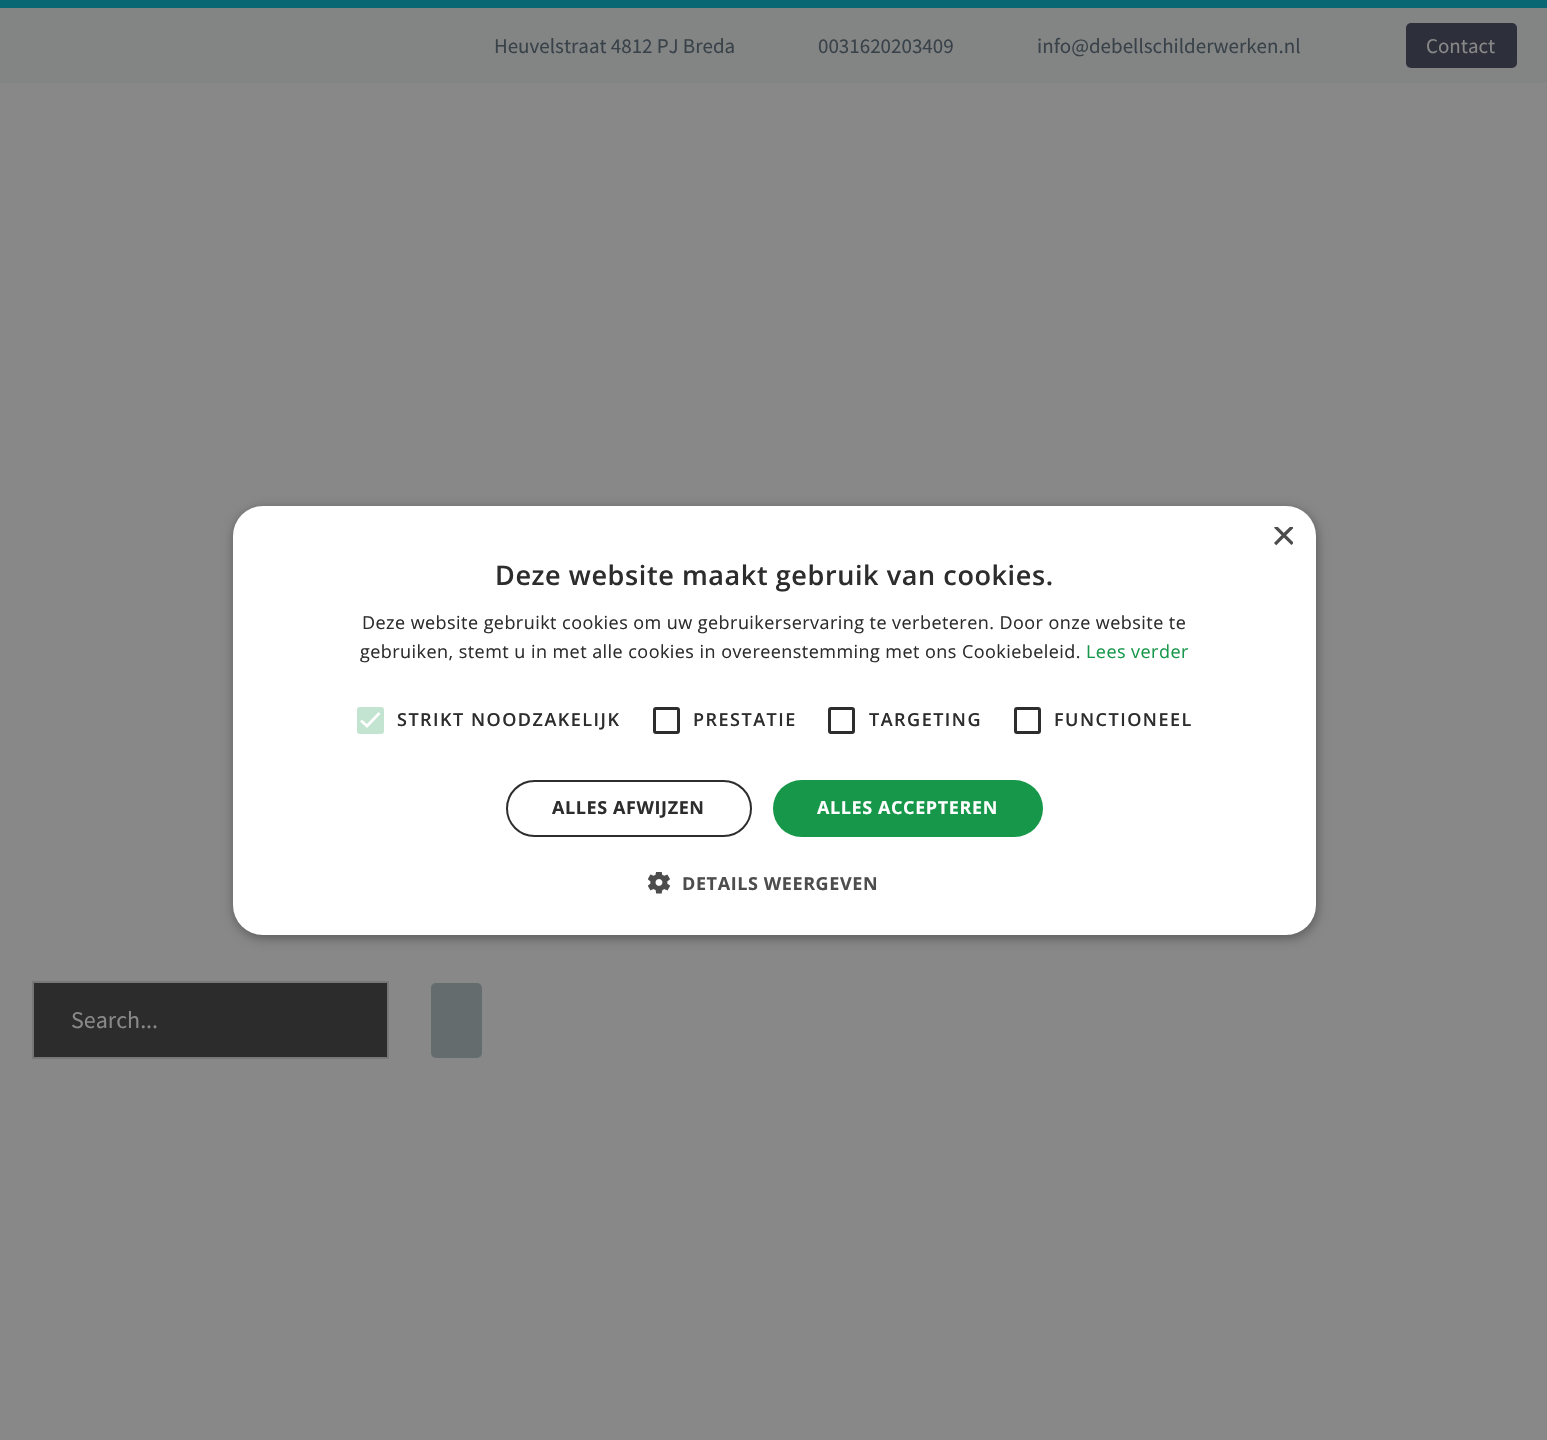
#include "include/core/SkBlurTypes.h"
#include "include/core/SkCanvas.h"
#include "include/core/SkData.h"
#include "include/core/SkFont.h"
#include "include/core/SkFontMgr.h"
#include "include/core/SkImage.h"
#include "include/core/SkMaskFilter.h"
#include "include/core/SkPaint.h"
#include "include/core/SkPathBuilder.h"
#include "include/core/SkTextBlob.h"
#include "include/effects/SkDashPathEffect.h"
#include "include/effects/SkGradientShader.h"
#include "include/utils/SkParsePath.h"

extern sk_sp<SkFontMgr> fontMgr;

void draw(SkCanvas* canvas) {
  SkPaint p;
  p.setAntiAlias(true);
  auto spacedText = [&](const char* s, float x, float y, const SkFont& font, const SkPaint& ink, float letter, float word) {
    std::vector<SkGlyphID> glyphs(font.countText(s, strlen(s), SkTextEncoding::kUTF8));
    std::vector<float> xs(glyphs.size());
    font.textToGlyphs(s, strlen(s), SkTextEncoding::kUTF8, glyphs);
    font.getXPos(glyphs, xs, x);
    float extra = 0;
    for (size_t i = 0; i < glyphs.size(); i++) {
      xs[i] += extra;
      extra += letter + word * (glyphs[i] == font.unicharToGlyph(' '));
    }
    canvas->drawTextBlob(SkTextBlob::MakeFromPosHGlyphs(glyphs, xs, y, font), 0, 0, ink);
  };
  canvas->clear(SkColorSetRGB(136, 136, 136));
  p.setColor(SkColorSetRGB(131, 132, 132));
  canvas->drawRect(SkRect::MakeLTRB(0, 8, 1547, 83), p);
  p.setColor(SkColorSetRGB(9, 103, 115));
  canvas->drawRect(SkRect::MakeLTRB(0, 0, 1547, 8), p);
  p.setColor(SkColorSetRGB(45, 47, 59));
  canvas->drawRoundRect(SkRect::MakeLTRB(1406, 23, 1517, 68), 5, 5, p);
  p.setColor(SkColorSetRGB(44, 44, 44));
  canvas->drawRect(SkRect::MakeLTRB(33, 982, 388, 1058), p);
  p.setStyle(SkPaint::kStroke_Style);
  p.setStrokeWidth(2);
  p.setColor(SkColorSetRGB(119, 119, 119));
  canvas->drawRect(SkRect::MakeLTRB(33, 982, 388, 1058), p);
  p.setStyle(SkPaint::kFill_Style);
  p.setColor(SkColorSetRGB(100, 108, 109));
  canvas->drawRoundRect(SkRect::MakeLTRB(431, 983, 482, 1058), 5, 5, p);
  p.setColor(SkColorSetARGB(89, 0, 0, 0));
  p.setMaskFilter(SkMaskFilter::MakeBlur(kNormal_SkBlurStyle, 6));
  canvas->drawRoundRect(SkRect::MakeLTRB(234, 509, 1317, 938), 30, 30, p);
  p.setMaskFilter(nullptr);
  p.setColor(SK_ColorWHITE);
  canvas->drawRoundRect(SkRect::MakeLTRB(233, 506, 1316, 935), 30, 30, p);
  p.setColor(SkColorSetRGB(194, 228, 208));
  canvas->drawRoundRect(SkRect::MakeLTRB(357, 707, 384, 734), 3, 3, p);
  p.setStyle(SkPaint::kStroke_Style);
  p.setStrokeWidth(2.7f);
  p.setColor(SK_ColorWHITE);
  canvas->drawPath(SkPathBuilder().moveTo(361, 720.5f).lineTo(367, 726).lineTo(379.5f, 713).detach(), p);
  p.setStrokeWidth(3);
  p.setColor(SkColorSetRGB(45, 45, 45));
  canvas->drawRoundRect(SkRect::MakeLTRB(654.5f, 708.5f, 678.5f, 732.5f), 1.5f, 1.5f, p);
  canvas->drawRoundRect(SkRect::MakeLTRB(829.5f, 708.5f, 853.5f, 732.5f), 1.5f, 1.5f, p);
  canvas->drawRoundRect(SkRect::MakeLTRB(1015.5f, 708.5f, 1039.5f, 732.5f), 1.5f, 1.5f, p);
  p.setStrokeWidth(2);
  canvas->drawRoundRect(SkRect::MakeLTRB(507, 781, 751, 836), 27.5f, 27.5f, p);
  p.setStyle(SkPaint::kFill_Style);
  p.setColor(SkColorSetRGB(22, 151, 74));
  canvas->drawRoundRect(SkRect::MakeLTRB(773, 780, 1043, 837), 28.5f, 28.5f, p);
  canvas->drawImageRect(SkImages::DeferredFromEncodedData(SkData::MakeFromFileName("images/1.png")), SkRect::MakeLTRB(648, 872, 671, 894), SkSamplingOptions());
  SkFont font1(fontMgr->matchFamilyStyle("Source Sans Pro", SkFontStyle::Normal()), 21);
  font1.setSubpixel(true);
  p.setColor(SkColorSetRGB(56, 66, 72));
  canvas->drawString("Heuvelstraat 4812 PJ Breda", 494, 53, font1, p);
  canvas->drawString("0031620203409", 818, 53, font1, p);
  canvas->drawString("info@debellschilderwerken.nl", 1037, 53, font1, p);
  p.setColor(SkColorSetRGB(136, 136, 136));
  canvas->drawString("Contact", 1426, 53, font1, p);
  SkFont font2(fontMgr->matchFamilyStyle("Source Sans Pro", SkFontStyle::Normal()), 24);
  font2.setSubpixel(true);
  canvas->drawString("Search...", 71, 1028, font2, p);
  canvas->save();
  canvas->clipRect(SkRect::MakeLTRB(1271, 527, 1293, 549));
  SkFont font3(fontMgr->matchFamilyStyle("Liberation Sans", SkFontStyle::Normal()), 44);
  font3.setSubpixel(true);
  p.setColor(SkColorSetRGB(77, 77, 77));
  canvas->drawString("×", 1271, 550, font3, p);
  canvas->restore();
  SkFont font4(fontMgr->matchFamilyStyle("Open Sans", SkFontStyle(600, SkFontStyle::kNormal_Width, SkFontStyle::kUpright_Slant)), 27);
  font4.setSubpixel(true);
  p.setColor(SkColorSetRGB(45, 45, 45));
  spacedText("Deze website maakt gebruik van cookies.", 495, 585, font4, p, 0.6f, 0);
  SkFont font5(fontMgr->matchFamilyStyle("Open Sans", SkFontStyle::Normal()), 18);
  font5.setSubpixel(true);
  spacedText("Deze website gebruikt cookies om uw gebruikerservaring te verbeteren. Door onze website te", 362, 629, font5, p, 0.45f, 0);
  spacedText("gebruiken, stemt u in met alle cookies in overeenstemming met ons Cookiebeleid.", 360, 658, font5, p, 0.45f, 0);
  p.setColor(SkColorSetRGB(22, 151, 74));
  spacedText("Lees verder", 1086, 658, font5, p, 0.45f, 0);
  SkFont font6(fontMgr->matchFamilyStyle("Open Sans", SkFontStyle(600, SkFontStyle::kNormal_Width, SkFontStyle::kUpright_Slant)), 18);
  font6.setSubpixel(true);
  p.setColor(SkColorSetRGB(45, 45, 45));
  spacedText("STRIKT NOODZAKELIJK", 397, 726, font6, p, 1.5f, 0);
  spacedText("PRESTATIE", 693, 726, font6, p, 1.5f, 0);
  spacedText("TARGETING", 869, 726, font6, p, 1.5f, 0);
  spacedText("FUNCTIONEEL", 1054, 726, font6, p, 1.5f, 0);
  SkFont font7(fontMgr->matchFamilyStyle("Open Sans", SkFontStyle::Bold()), 18);
  font7.setSubpixel(true);
  spacedText("ALLES AFWIJZEN", 552, 814, font7, p, 0.6f, 0);
  p.setColor(SK_ColorWHITE);
  spacedText("ALLES ACCEPTEREN", 817, 814, font7, p, 0.6f, 0);
  p.setColor(SkColorSetRGB(77, 77, 77));
  spacedText("DETAILS WEERGEVEN", 682, 890, font7, p, 0.6f, 0);
}
